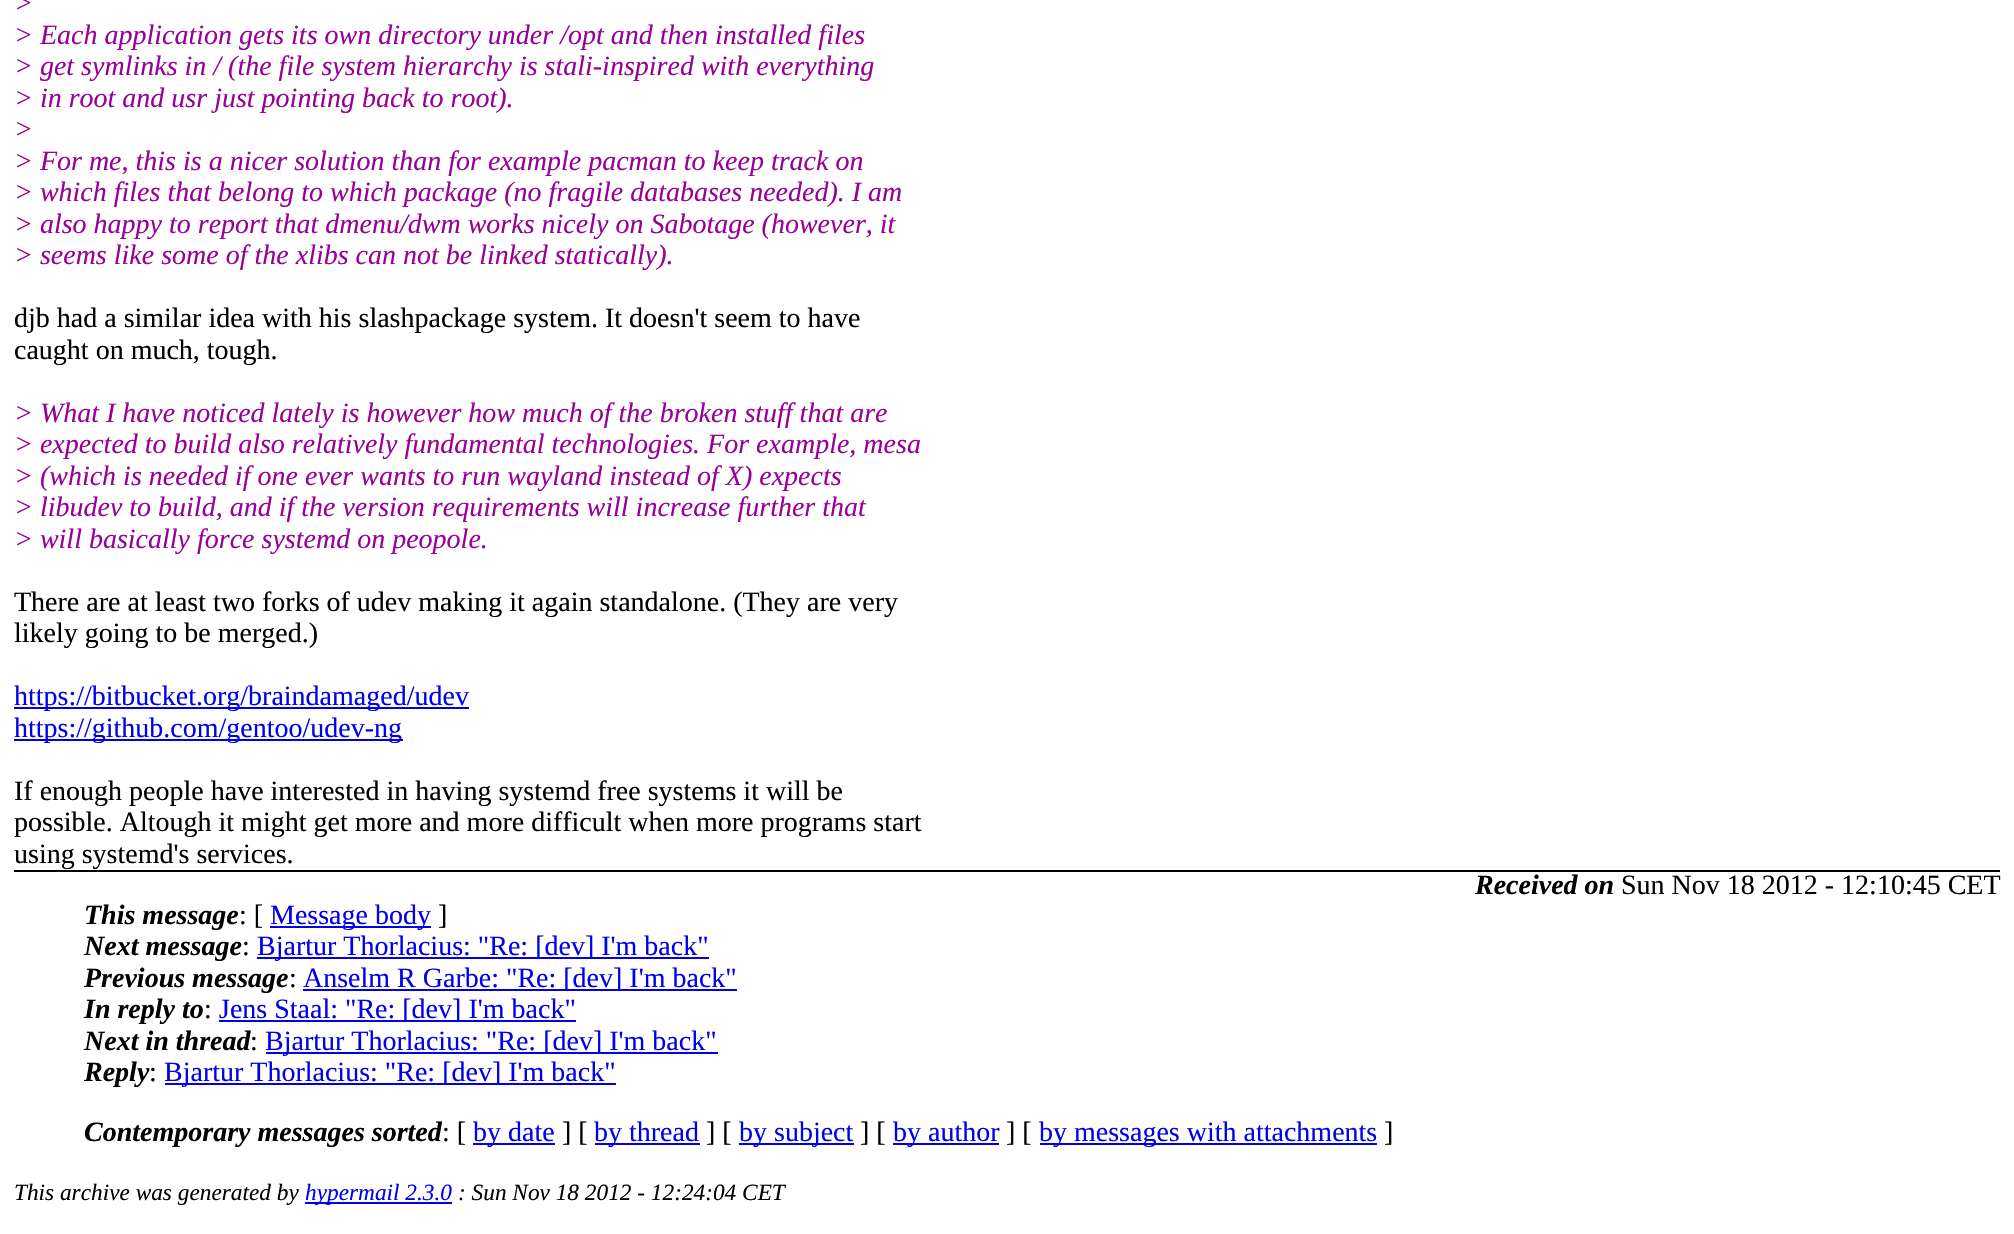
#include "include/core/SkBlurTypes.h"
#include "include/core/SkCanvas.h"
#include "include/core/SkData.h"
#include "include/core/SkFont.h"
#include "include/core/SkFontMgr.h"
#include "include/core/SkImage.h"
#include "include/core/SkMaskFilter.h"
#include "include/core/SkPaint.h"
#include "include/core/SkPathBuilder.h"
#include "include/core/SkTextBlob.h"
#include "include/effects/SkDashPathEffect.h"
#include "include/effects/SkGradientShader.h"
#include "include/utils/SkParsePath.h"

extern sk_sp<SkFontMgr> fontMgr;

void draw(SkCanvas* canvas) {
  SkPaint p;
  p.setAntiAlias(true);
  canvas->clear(SK_ColorWHITE);
  p.setColor(SkColorSetRGB(0, 0, 238));
  canvas->drawRect(SkRect::MakeLTRB(14, 707, 469, 709), p);
  canvas->drawRect(SkRect::MakeLTRB(14, 739, 403, 741), p);
  p.setColor(SK_ColorBLACK);
  canvas->drawRect(SkRect::MakeLTRB(14, 870, 2000, 872), p);
  p.setColor(SkColorSetRGB(0, 0, 238));
  canvas->drawRect(SkRect::MakeLTRB(270, 926, 431, 928), p);
  canvas->drawRect(SkRect::MakeLTRB(257, 957, 709, 959), p);
  canvas->drawRect(SkRect::MakeLTRB(303, 989, 737, 991), p);
  canvas->drawRect(SkRect::MakeLTRB(219, 1020, 576, 1022), p);
  canvas->drawRect(SkRect::MakeLTRB(266, 1052, 718, 1054), p);
  canvas->drawRect(SkRect::MakeLTRB(165, 1083, 616, 1085), p);
  canvas->drawRect(SkRect::MakeLTRB(473, 1143, 555, 1145), p);
  canvas->drawRect(SkRect::MakeLTRB(595, 1143, 700, 1145), p);
  canvas->drawRect(SkRect::MakeLTRB(739, 1143, 854, 1145), p);
  canvas->drawRect(SkRect::MakeLTRB(893, 1143, 999, 1145), p);
  canvas->drawRect(SkRect::MakeLTRB(1040, 1143, 1377, 1145), p);
  canvas->drawRect(SkRect::MakeLTRB(305, 1202, 452, 1204), p);
  SkFont font1(fontMgr->matchFamilyStyle("Liberation Serif", SkFontStyle::Italic()), 28);
  font1.setSubpixel(true);
  p.setColor(SkColorSetRGB(153, 0, 153));
  canvas->drawString(">", 14, 12, font1, p);
  canvas->drawString("> Each application gets its own directory under /opt and then installed files", 14, 44, font1, p);
  canvas->drawString("> get symlinks in / (the file system hierarchy is stali-inspired with everything", 14, 75, font1, p);
  canvas->drawString("> in root and usr just pointing back to root).", 14, 107, font1, p);
  canvas->drawString(">", 14, 138, font1, p);
  canvas->drawString("> For me, this is a nicer solution than for example pacman to keep track on", 14, 170, font1, p);
  canvas->drawString("> which files that belong to which package (no fragile databases needed). I am", 14, 201, font1, p);
  canvas->drawString("> also happy to report that dmenu/dwm works nicely on Sabotage (however, it", 14, 233, font1, p);
  canvas->drawString("> seems like some of the xlibs can not be linked statically).", 14, 264, font1, p);
  SkFont font2(fontMgr->matchFamilyStyle("Liberation Serif", SkFontStyle::Normal()), 28);
  font2.setSubpixel(true);
  p.setColor(SK_ColorBLACK);
  canvas->drawString("djb had a similar idea with his slashpackage system. It doesn't seem to have", 14, 327, font2, p);
  canvas->drawString("caught on much, tough.", 14, 359, font2, p);
  p.setColor(SkColorSetRGB(153, 0, 153));
  canvas->drawString("> What I have noticed lately is however how much of the broken stuff that are", 14, 422, font1, p);
  canvas->drawString("> expected to build also relatively fundamental technologies. For example, mesa", 14, 453, font1, p);
  canvas->drawString("> (which is needed if one ever wants to run wayland instead of X) expects", 14, 485, font1, p);
  canvas->drawString("> libudev to build, and if the version requirements will increase further that", 14, 516, font1, p);
  canvas->drawString("> will basically force systemd on peopole.", 14, 548, font1, p);
  p.setColor(SK_ColorBLACK);
  canvas->drawString("There are at least two forks of udev making it again standalone. (They are very", 14, 611, font2, p);
  canvas->drawString("likely going to be merged.)", 14, 642, font2, p);
  p.setColor(SkColorSetRGB(0, 0, 238));
  canvas->drawString("https://bitbucket.org/braindamaged/udev", 14, 705, font2, p);
  canvas->drawString("https://github.com/gentoo/udev-ng", 14, 737, font2, p);
  p.setColor(SK_ColorBLACK);
  canvas->drawString("If enough people have interested in having systemd free systems it will be", 14, 800, font2, p);
  canvas->drawString("possible. Altough it might get more and more difficult when more programs start", 14, 831, font2, p);
  canvas->drawString("using systemd's services.", 14, 863, font2, p);
  SkFont font3(fontMgr->matchFamilyStyle("Liberation Serif", SkFontStyle::BoldItalic()), 28);
  font3.setSubpixel(true);
  canvas->drawString("Received on", 1475, 894, font3, p);
  canvas->drawString("Sun Nov 18 2012 - 12:10:45 CET", 1621, 894, font2, p);
  canvas->drawString("This message", 84, 924, font3, p);
  canvas->drawString(": [", 239, 924, font2, p);
  p.setColor(SkColorSetRGB(0, 0, 238));
  canvas->drawString("Message body", 270, 924, font2, p);
  p.setColor(SK_ColorBLACK);
  canvas->drawString("]", 438, 924, font2, p);
  canvas->drawString("Next message", 84, 955, font3, p);
  canvas->drawString(":", 242, 955, font2, p);
  p.setColor(SkColorSetRGB(0, 0, 238));
  canvas->drawString("Bjartur Thorlacius: \"Re: [dev] I'm back\"", 257, 955, font2, p);
  p.setColor(SK_ColorBLACK);
  canvas->drawString("Previous message", 84, 987, font3, p);
  canvas->drawString(":", 289, 987, font2, p);
  p.setColor(SkColorSetRGB(0, 0, 238));
  canvas->drawString("Anselm R Garbe: \"Re: [dev] I'm back\"", 303, 987, font2, p);
  p.setColor(SK_ColorBLACK);
  canvas->drawString("In reply to", 84, 1018, font3, p);
  canvas->drawString(":", 204, 1018, font2, p);
  p.setColor(SkColorSetRGB(0, 0, 238));
  canvas->drawString("Jens Staal: \"Re: [dev] I'm back\"", 219, 1018, font2, p);
  p.setColor(SK_ColorBLACK);
  canvas->drawString("Next in thread", 84, 1050, font3, p);
  canvas->drawString(":", 250, 1050, font2, p);
  p.setColor(SkColorSetRGB(0, 0, 238));
  canvas->drawString("Bjartur Thorlacius: \"Re: [dev] I'm back\"", 265, 1050, font2, p);
  p.setColor(SK_ColorBLACK);
  canvas->drawString("Reply", 84, 1081, font3, p);
  canvas->drawString(":", 149, 1081, font2, p);
  p.setColor(SkColorSetRGB(0, 0, 238));
  canvas->drawString("Bjartur Thorlacius: \"Re: [dev] I'm back\"", 164, 1081, font2, p);
  p.setColor(SK_ColorBLACK);
  canvas->drawString("Contemporary messages sorted", 84, 1141, font3, p);
  canvas->drawString(": [", 442, 1141, font2, p);
  p.setColor(SkColorSetRGB(0, 0, 238));
  canvas->drawString("by date", 473, 1141, font2, p);
  p.setColor(SK_ColorBLACK);
  canvas->drawString("] [", 562, 1141, font2, p);
  p.setColor(SkColorSetRGB(0, 0, 238));
  canvas->drawString("by thread", 594, 1141, font2, p);
  p.setColor(SK_ColorBLACK);
  canvas->drawString("] [", 706, 1141, font2, p);
  p.setColor(SkColorSetRGB(0, 0, 238));
  canvas->drawString("by subject", 739, 1141, font2, p);
  p.setColor(SK_ColorBLACK);
  canvas->drawString("] [", 860, 1141, font2, p);
  p.setColor(SkColorSetRGB(0, 0, 238));
  canvas->drawString("by author", 893, 1141, font2, p);
  p.setColor(SK_ColorBLACK);
  canvas->drawString("] [", 1006, 1141, font2, p);
  p.setColor(SkColorSetRGB(0, 0, 238));
  canvas->drawString("by messages with attachments", 1039, 1141, font2, p);
  p.setColor(SK_ColorBLACK);
  canvas->drawString("]", 1384, 1141, font2, p);
  SkFont font4(fontMgr->matchFamilyStyle("Liberation Serif", SkFontStyle::Italic()), 23.3f);
  font4.setSubpixel(true);
  canvas->drawString("This archive was generated by", 14, 1200, font4, p);
  p.setColor(SkColorSetRGB(0, 0, 238));
  canvas->drawString("hypermail 2.3.0", 305, 1200, font4, p);
  p.setColor(SK_ColorBLACK);
  canvas->drawString(": Sun Nov 18 2012 - 12:24:04 CET", 458, 1200, font4, p);
}
